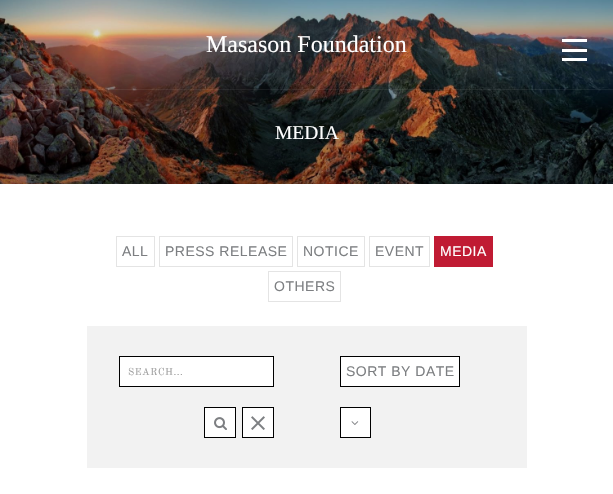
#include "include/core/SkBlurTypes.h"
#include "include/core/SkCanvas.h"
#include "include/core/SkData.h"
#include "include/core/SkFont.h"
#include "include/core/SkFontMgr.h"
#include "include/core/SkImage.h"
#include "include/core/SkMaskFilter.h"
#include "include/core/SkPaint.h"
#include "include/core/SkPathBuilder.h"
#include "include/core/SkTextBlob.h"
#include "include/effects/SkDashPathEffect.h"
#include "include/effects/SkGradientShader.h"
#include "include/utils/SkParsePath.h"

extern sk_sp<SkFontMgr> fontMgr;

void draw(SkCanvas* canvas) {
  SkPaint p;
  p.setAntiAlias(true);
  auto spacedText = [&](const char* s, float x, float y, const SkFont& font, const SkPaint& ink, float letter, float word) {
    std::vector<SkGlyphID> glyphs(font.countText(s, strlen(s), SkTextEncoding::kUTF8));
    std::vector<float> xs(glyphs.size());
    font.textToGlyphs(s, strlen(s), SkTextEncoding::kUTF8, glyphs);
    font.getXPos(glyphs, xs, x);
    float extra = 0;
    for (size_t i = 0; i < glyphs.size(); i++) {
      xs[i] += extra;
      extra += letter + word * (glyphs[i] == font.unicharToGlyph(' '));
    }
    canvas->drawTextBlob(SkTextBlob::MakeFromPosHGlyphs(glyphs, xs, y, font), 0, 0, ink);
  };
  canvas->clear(SK_ColorWHITE);
  canvas->drawImageRect(SkImages::DeferredFromEncodedData(SkData::MakeFromFileName("images/1.png")), SkRect::MakeLTRB(0, 0, 613, 184), SkSamplingOptions());
  p.setColor(SkColorSetARGB(15, 255, 255, 255));
  canvas->drawRect(SkRect::MakeLTRB(0, 89, 613, 90), p);
  p.setColor(SK_ColorWHITE);
  canvas->drawRect(SkRect::MakeLTRB(562, 39, 587, 42), p);
  canvas->drawRect(SkRect::MakeLTRB(562, 58, 587, 61), p);
  canvas->drawRect(SkRect::MakeLTRB(562, 49, 587, 52), p);
  p.setStyle(SkPaint::kStroke_Style);
  p.setStrokeWidth(1);
  p.setColor(SkColorSetRGB(228, 228, 228));
  canvas->drawRect(SkRect::MakeLTRB(116.5f, 236.5f, 154.5f, 266.5f), p);
  canvas->drawRect(SkRect::MakeLTRB(159.5f, 236.5f, 292.5f, 266.5f), p);
  canvas->drawRect(SkRect::MakeLTRB(297.5f, 236.5f, 364.5f, 266.5f), p);
  canvas->drawRect(SkRect::MakeLTRB(369.5f, 236.5f, 429.5f, 266.5f), p);
  p.setStyle(SkPaint::kFill_Style);
  p.setColor(SkColorSetRGB(192, 27, 51));
  canvas->drawRect(SkRect::MakeLTRB(434, 236, 493, 267), p);
  p.setStyle(SkPaint::kStroke_Style);
  p.setColor(SkColorSetRGB(228, 228, 228));
  canvas->drawRect(SkRect::MakeLTRB(268.5f, 271.5f, 340.5f, 301.5f), p);
  p.setStyle(SkPaint::kFill_Style);
  p.setColor(SkColorSetRGB(242, 242, 242));
  canvas->drawRect(SkRect::MakeLTRB(87, 326, 527, 468), p);
  p.setColor(SK_ColorWHITE);
  canvas->drawRect(SkRect::MakeLTRB(119.5f, 356.5f, 273.5f, 386.5f), p);
  p.setStyle(SkPaint::kStroke_Style);
  p.setColor(SK_ColorBLACK);
  canvas->drawRect(SkRect::MakeLTRB(119.5f, 356.5f, 273.5f, 386.5f), p);
  p.setStyle(SkPaint::kFill_Style);
  p.setColor(SK_ColorWHITE);
  canvas->drawRect(SkRect::MakeLTRB(204.5f, 407.5f, 235.5f, 437.5f), p);
  p.setStyle(SkPaint::kStroke_Style);
  p.setColor(SK_ColorBLACK);
  canvas->drawRect(SkRect::MakeLTRB(204.5f, 407.5f, 235.5f, 437.5f), p);
  canvas->drawImageRect(SkImages::DeferredFromEncodedData(SkData::MakeFromFileName("images/2.png")), SkRect::MakeLTRB(214, 417, 227, 430), SkSamplingOptions());
  p.setStyle(SkPaint::kFill_Style);
  p.setColor(SK_ColorWHITE);
  canvas->drawRect(SkRect::MakeLTRB(242.5f, 407.5f, 273.5f, 437.5f), p);
  p.setStyle(SkPaint::kStroke_Style);
  p.setColor(SK_ColorBLACK);
  canvas->drawRect(SkRect::MakeLTRB(242.5f, 407.5f, 273.5f, 437.5f), p);
  canvas->drawImageRect(SkImages::DeferredFromEncodedData(SkData::MakeFromFileName("images/3.png")), SkRect::MakeLTRB(251, 416, 265, 430), SkSamplingOptions());
  p.setStyle(SkPaint::kFill_Style);
  p.setColor(SK_ColorWHITE);
  canvas->drawRect(SkRect::MakeLTRB(340.5f, 356.5f, 459.5f, 386.5f), p);
  p.setStyle(SkPaint::kStroke_Style);
  p.setColor(SK_ColorBLACK);
  canvas->drawRect(SkRect::MakeLTRB(340.5f, 356.5f, 459.5f, 386.5f), p);
  p.setStyle(SkPaint::kFill_Style);
  p.setColor(SK_ColorWHITE);
  canvas->drawRect(SkRect::MakeLTRB(340.5f, 407.5f, 370.5f, 437.5f), p);
  p.setStyle(SkPaint::kStroke_Style);
  p.setColor(SK_ColorBLACK);
  canvas->drawRect(SkRect::MakeLTRB(340.5f, 407.5f, 370.5f, 437.5f), p);
  canvas->drawImageRect(SkImages::DeferredFromEncodedData(SkData::MakeFromFileName("images/4.png")), SkRect::MakeLTRB(351, 421, 359, 425), SkSamplingOptions());
  SkFont font1(fontMgr->matchFamilyStyle("Liberation Serif", SkFontStyle::Normal()), 24);
  font1.setSubpixel(true);
  p.setStyle(SkPaint::kFill_Style);
  p.setColor(SK_ColorWHITE);
  canvas->drawString("Masason Foundation", 206, 52, font1, p);
  SkFont font2(fontMgr->matchFamilyStyle("Liberation Serif", SkFontStyle::Normal()), 19.5f);
  font2.setSubpixel(true);
  canvas->drawString("MEDIA", 275, 139, font2, p);
  SkFont font3(fontMgr->matchFamilyStyle("Liberation Sans", SkFontStyle::Normal()), 14);
  font3.setSubpixel(true);
  p.setColor(SkColorSetRGB(125, 127, 130));
  spacedText("ALL", 122, 256, font3, p, 0.5f, 0);
  spacedText("PRESS RELEASE", 165, 256, font3, p, 0.5f, 0);
  spacedText("NOTICE", 303, 256, font3, p, 0.5f, 0);
  spacedText("EVENT", 375, 256, font3, p, 0.5f, 0);
  p.setColor(SK_ColorWHITE);
  spacedText("MEDIA", 440, 256, font3, p, 0.5f, 0);
  p.setColor(SkColorSetRGB(125, 127, 130));
  spacedText("OTHERS", 274, 291, font3, p, 0.5f, 0);
  SkFont font4(fontMgr->matchFamilyStyle("Old Standard TT", SkFontStyle::Normal()), 10);
  font4.setSubpixel(true);
  p.setColor(SkColorSetRGB(161, 161, 161));
  spacedText("SEARCH...", 128, 375, font4, p, 0.5f, 0);
  p.setColor(SkColorSetRGB(125, 127, 130));
  spacedText("SORT BY DATE", 346, 376, font3, p, 0.5f, 0);
}
